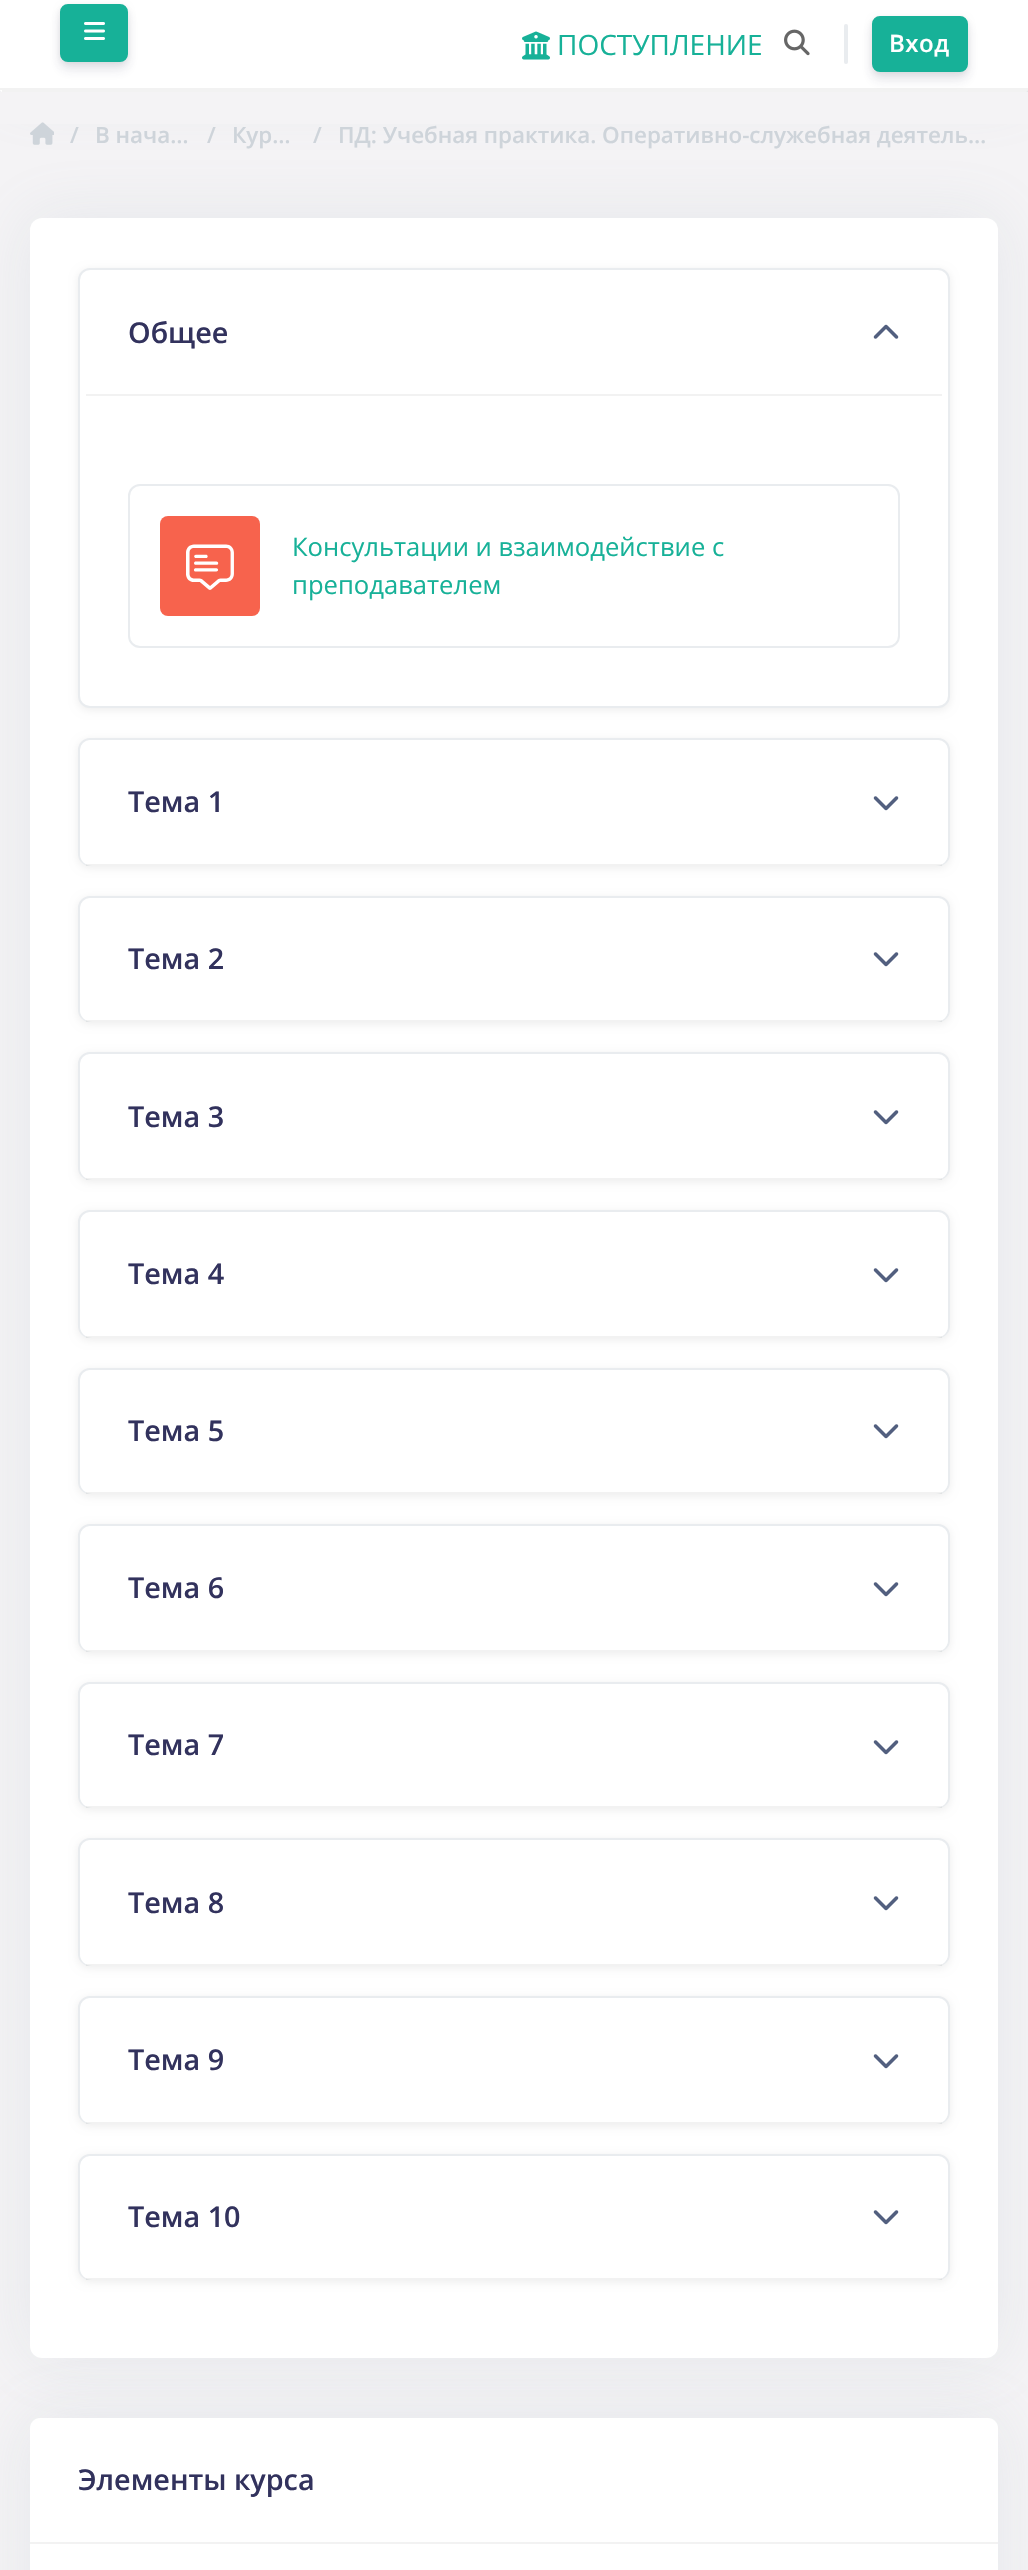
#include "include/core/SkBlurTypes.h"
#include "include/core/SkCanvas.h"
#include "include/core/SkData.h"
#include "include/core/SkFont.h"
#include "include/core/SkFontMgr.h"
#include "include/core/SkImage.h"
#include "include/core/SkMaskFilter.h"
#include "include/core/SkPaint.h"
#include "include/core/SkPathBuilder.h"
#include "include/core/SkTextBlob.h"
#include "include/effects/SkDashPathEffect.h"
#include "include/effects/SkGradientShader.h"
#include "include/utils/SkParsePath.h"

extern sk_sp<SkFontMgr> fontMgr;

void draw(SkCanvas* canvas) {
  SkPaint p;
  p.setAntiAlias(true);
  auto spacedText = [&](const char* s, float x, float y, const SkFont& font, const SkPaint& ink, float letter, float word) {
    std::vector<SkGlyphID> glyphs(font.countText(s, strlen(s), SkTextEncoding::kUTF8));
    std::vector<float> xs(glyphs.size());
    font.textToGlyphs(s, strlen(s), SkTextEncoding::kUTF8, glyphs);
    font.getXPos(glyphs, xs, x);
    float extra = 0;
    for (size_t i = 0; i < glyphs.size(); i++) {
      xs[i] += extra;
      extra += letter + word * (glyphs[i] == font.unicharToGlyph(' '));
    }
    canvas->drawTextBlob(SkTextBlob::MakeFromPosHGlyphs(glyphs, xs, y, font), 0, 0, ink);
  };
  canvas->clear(SkColorSetRGB(244, 243, 245));
  p.setColor(SkColorSetARGB(38, 136, 152, 170));
  p.setMaskFilter(SkMaskFilter::MakeBlur(kNormal_SkBlurStyle, 32));
  canvas->drawRoundRect(SkRect::MakeLTRB(0, 0, 1028, 92), 20, 20, p);
  p.setMaskFilter(nullptr);
  p.setColor(SK_ColorWHITE);
  canvas->drawRect(SkRect::MakeLTRB(0, 0, 1028, 88), p);
  p.setColor(SkColorSetRGB(242, 242, 242));
  canvas->drawRect(SkRect::MakeLTRB(0, 88, 1028, 90), p);
  p.setColor(SkColorSetRGB(244, 243, 245));
  canvas->drawRect(SkRect::MakeLTRB(0, 92, 1028, 124), p);
  p.setColor(SkColorSetARGB(28, 50, 50, 93));
  p.setMaskFilter(SkMaskFilter::MakeBlur(kNormal_SkBlurStyle, 6));
  canvas->drawRoundRect(SkRect::MakeLTRB(872, 24, 968, 80), 8, 8, p);
  p.setMaskFilter(nullptr);
  p.setColor(SK_ColorWHITE);
  canvas->drawPath(SkPathBuilder().moveTo(0, 90).lineTo(1028, 90).cubicTo(1028, 91, 1027, 92, 1026, 92).lineTo(2, 92).cubicTo(1, 92, 0, 91, 0, 90).close().detach(), p);
  p.setColor(SkColorSetARGB(13, 0, 0, 0));
  canvas->drawRect(SkRect::MakeLTRB(2, 90, 1028, 92), p);
  p.setColor(SkColorSetARGB(20, 0, 0, 0));
  p.setMaskFilter(SkMaskFilter::MakeBlur(kNormal_SkBlurStyle, 3));
  canvas->drawRoundRect(SkRect::MakeLTRB(60, 6, 128, 64), 8, 8, p);
  p.setMaskFilter(nullptr);
  p.setColor(SkColorSetARGB(28, 50, 50, 93));
  p.setMaskFilter(SkMaskFilter::MakeBlur(kNormal_SkBlurStyle, 6));
  canvas->drawRoundRect(SkRect::MakeLTRB(60, 12, 128, 70), 8, 8, p);
  p.setMaskFilter(nullptr);
  p.setColor(SkColorSetRGB(23, 177, 152));
  canvas->drawRoundRect(SkRect::MakeLTRB(61, 5, 127, 61), 7, 7, p);
  p.setStyle(SkPaint::kStroke_Style);
  p.setStrokeWidth(2);
  canvas->drawRoundRect(SkRect::MakeLTRB(61, 5, 127, 61), 7, 7, p);
  canvas->drawImageRect(SkImages::DeferredFromEncodedData(SkData::MakeFromFileName("images/1.png")), SkRect::MakeLTRB(84, 22, 105, 40), SkSamplingOptions());
  canvas->drawImageRect(SkImages::DeferredFromEncodedData(SkData::MakeFromFileName("images/2.png")), SkRect::MakeLTRB(522, 31, 550, 60), SkSamplingOptions());
  canvas->drawImageRect(SkImages::DeferredFromEncodedData(SkData::MakeFromFileName("images/3.png")), SkRect::MakeLTRB(784, 29, 810, 56), SkSamplingOptions());
  p.setStyle(SkPaint::kFill_Style);
  p.setColor(SkColorSetRGB(233, 236, 239));
  canvas->drawRoundRect(SkRect::MakeLTRB(844, 24, 848, 64), 2, 2, p);
  p.setColor(SkColorSetARGB(20, 0, 0, 0));
  p.setMaskFilter(SkMaskFilter::MakeBlur(kNormal_SkBlurStyle, 3));
  canvas->drawRoundRect(SkRect::MakeLTRB(872, 18, 968, 74), 8, 8, p);
  p.setMaskFilter(nullptr);
  p.setColor(SkColorSetRGB(23, 177, 152));
  canvas->drawRoundRect(SkRect::MakeLTRB(873, 17, 967, 71), 7, 7, p);
  p.setStyle(SkPaint::kStroke_Style);
  canvas->drawRoundRect(SkRect::MakeLTRB(873, 17, 967, 71), 7, 7, p);
  canvas->drawImageRect(SkImages::DeferredFromEncodedData(SkData::MakeFromFileName("images/4.png")), SkRect::MakeLTRB(30, 122, 54, 145), SkSamplingOptions());
  p.setStyle(SkPaint::kFill_Style);
  p.setColor(SkColorSetARGB(38, 136, 152, 170));
  p.setMaskFilter(SkMaskFilter::MakeBlur(kNormal_SkBlurStyle, 32));
  canvas->drawRoundRect(SkRect::MakeLTRB(30, 218, 998, 2358), 12, 12, p);
  p.setMaskFilter(nullptr);
  p.setColor(SK_ColorWHITE);
  canvas->drawRoundRect(SkRect::MakeLTRB(30, 218, 998, 2358), 12, 12, p);
  p.setColor(SkColorSetARGB(18, 0, 0, 0));
  p.setMaskFilter(SkMaskFilter::MakeBlur(kNormal_SkBlurStyle, 4));
  canvas->drawRoundRect(SkRect::MakeLTRB(78, 270, 950, 710), 12, 12, p);
  p.setMaskFilter(nullptr);
  p.setColor(SK_ColorWHITE);
  canvas->drawRoundRect(SkRect::MakeLTRB(79, 269, 949, 707), 11, 11, p);
  p.setStyle(SkPaint::kStroke_Style);
  p.setColor(SkColorSetRGB(233, 236, 239));
  canvas->drawRoundRect(SkRect::MakeLTRB(79, 269, 949, 707), 11, 11, p);
  p.setStyle(SkPaint::kFill_Style);
  p.setColor(SkColorSetRGB(242, 242, 242));
  canvas->drawRect(SkRect::MakeLTRB(86, 394, 942, 396), p);
  canvas->drawImageRect(SkImages::DeferredFromEncodedData(SkData::MakeFromFileName("images/5.png")), SkRect::MakeLTRB(873, 324, 899, 339), SkSamplingOptions());
  p.setStyle(SkPaint::kStroke_Style);
  p.setColor(SkColorSetRGB(233, 236, 239));
  canvas->drawRoundRect(SkRect::MakeLTRB(129, 485, 899, 647), 11, 11, p);
  p.setStyle(SkPaint::kFill_Style);
  p.setColor(SkColorSetRGB(247, 99, 77));
  canvas->drawRoundRect(SkRect::MakeLTRB(160, 516, 260, 616), 8, 8, p);
  canvas->drawImageRect(SkImages::DeferredFromEncodedData(SkData::MakeFromFileName("images/6.png")), SkRect::MakeLTRB(186, 544, 234, 590), SkSamplingOptions());
  p.setColor(SkColorSetARGB(18, 0, 0, 0));
  p.setMaskFilter(SkMaskFilter::MakeBlur(kNormal_SkBlurStyle, 4));
  canvas->drawRoundRect(SkRect::MakeLTRB(78, 740, 950, 868), 12, 12, p);
  p.setMaskFilter(nullptr);
  p.setColor(SK_ColorWHITE);
  canvas->drawRoundRect(SkRect::MakeLTRB(79, 739, 949, 865), 11, 11, p);
  p.setStyle(SkPaint::kStroke_Style);
  p.setColor(SkColorSetRGB(233, 236, 239));
  canvas->drawRoundRect(SkRect::MakeLTRB(79, 739, 949, 865), 11, 11, p);
  p.setStyle(SkPaint::kFill_Style);
  p.setColor(SK_ColorWHITE);
  canvas->drawRoundRect(SkRect::MakeLTRB(80, 740, 948, 866), 12, 12, p);
  p.setColor(SkColorSetARGB(13, 0, 0, 0));
  canvas->drawRect(SkRect::MakeLTRB(86, 864, 942, 866), p);
  canvas->drawImageRect(SkImages::DeferredFromEncodedData(SkData::MakeFromFileName("images/7.png")), SkRect::MakeLTRB(873, 796, 899, 811), SkSamplingOptions());
  p.setColor(SkColorSetARGB(18, 0, 0, 0));
  p.setMaskFilter(SkMaskFilter::MakeBlur(kNormal_SkBlurStyle, 4));
  canvas->drawRoundRect(SkRect::MakeLTRB(78, 898, 950, 1024), 12, 12, p);
  p.setMaskFilter(nullptr);
  p.setColor(SK_ColorWHITE);
  canvas->drawRoundRect(SkRect::MakeLTRB(79, 897, 949, 1021), 11, 11, p);
  p.setStyle(SkPaint::kStroke_Style);
  p.setColor(SkColorSetRGB(233, 236, 239));
  canvas->drawRoundRect(SkRect::MakeLTRB(79, 897, 949, 1021), 11, 11, p);
  p.setStyle(SkPaint::kFill_Style);
  p.setColor(SK_ColorWHITE);
  canvas->drawRoundRect(SkRect::MakeLTRB(80, 898, 948, 1022), 12, 12, p);
  p.setColor(SkColorSetARGB(13, 0, 0, 0));
  canvas->drawRect(SkRect::MakeLTRB(86, 1020, 942, 1022), p);
  canvas->drawImageRect(SkImages::DeferredFromEncodedData(SkData::MakeFromFileName("images/7.png")), SkRect::MakeLTRB(873, 952, 899, 967), SkSamplingOptions());
  p.setColor(SkColorSetARGB(18, 0, 0, 0));
  p.setMaskFilter(SkMaskFilter::MakeBlur(kNormal_SkBlurStyle, 4));
  canvas->drawRoundRect(SkRect::MakeLTRB(78, 1054, 950, 1182), 12, 12, p);
  p.setMaskFilter(nullptr);
  p.setColor(SK_ColorWHITE);
  canvas->drawRoundRect(SkRect::MakeLTRB(79, 1053, 949, 1179), 11, 11, p);
  p.setStyle(SkPaint::kStroke_Style);
  p.setColor(SkColorSetRGB(233, 236, 239));
  canvas->drawRoundRect(SkRect::MakeLTRB(79, 1053, 949, 1179), 11, 11, p);
  p.setStyle(SkPaint::kFill_Style);
  p.setColor(SK_ColorWHITE);
  canvas->drawRoundRect(SkRect::MakeLTRB(80, 1054, 948, 1180), 12, 12, p);
  p.setColor(SkColorSetARGB(13, 0, 0, 0));
  canvas->drawRect(SkRect::MakeLTRB(86, 1178, 942, 1180), p);
  canvas->drawImageRect(SkImages::DeferredFromEncodedData(SkData::MakeFromFileName("images/7.png")), SkRect::MakeLTRB(873, 1110, 899, 1125), SkSamplingOptions());
  p.setColor(SkColorSetARGB(18, 0, 0, 0));
  p.setMaskFilter(SkMaskFilter::MakeBlur(kNormal_SkBlurStyle, 4));
  canvas->drawRoundRect(SkRect::MakeLTRB(78, 1212, 950, 1340), 12, 12, p);
  p.setMaskFilter(nullptr);
  p.setColor(SK_ColorWHITE);
  canvas->drawRoundRect(SkRect::MakeLTRB(79, 1211, 949, 1337), 11, 11, p);
  p.setStyle(SkPaint::kStroke_Style);
  p.setColor(SkColorSetRGB(233, 236, 239));
  canvas->drawRoundRect(SkRect::MakeLTRB(79, 1211, 949, 1337), 11, 11, p);
  p.setStyle(SkPaint::kFill_Style);
  p.setColor(SK_ColorWHITE);
  canvas->drawRoundRect(SkRect::MakeLTRB(80, 1212, 948, 1338), 12, 12, p);
  p.setColor(SkColorSetARGB(13, 0, 0, 0));
  canvas->drawRect(SkRect::MakeLTRB(86, 1336, 942, 1338), p);
  canvas->drawImageRect(SkImages::DeferredFromEncodedData(SkData::MakeFromFileName("images/7.png")), SkRect::MakeLTRB(873, 1268, 899, 1283), SkSamplingOptions());
  p.setColor(SkColorSetARGB(18, 0, 0, 0));
  p.setMaskFilter(SkMaskFilter::MakeBlur(kNormal_SkBlurStyle, 4));
  canvas->drawRoundRect(SkRect::MakeLTRB(78, 1370, 950, 1496), 12, 12, p);
  p.setMaskFilter(nullptr);
  p.setColor(SK_ColorWHITE);
  canvas->drawRoundRect(SkRect::MakeLTRB(79, 1369, 949, 1493), 11, 11, p);
  p.setStyle(SkPaint::kStroke_Style);
  p.setColor(SkColorSetRGB(233, 236, 239));
  canvas->drawRoundRect(SkRect::MakeLTRB(79, 1369, 949, 1493), 11, 11, p);
  p.setStyle(SkPaint::kFill_Style);
  p.setColor(SK_ColorWHITE);
  canvas->drawRoundRect(SkRect::MakeLTRB(80, 1370, 948, 1494), 12, 12, p);
  p.setColor(SkColorSetARGB(13, 0, 0, 0));
  canvas->drawRect(SkRect::MakeLTRB(86, 1492, 942, 1494), p);
  canvas->drawImageRect(SkImages::DeferredFromEncodedData(SkData::MakeFromFileName("images/7.png")), SkRect::MakeLTRB(873, 1424, 899, 1439), SkSamplingOptions());
  p.setColor(SkColorSetARGB(18, 0, 0, 0));
  p.setMaskFilter(SkMaskFilter::MakeBlur(kNormal_SkBlurStyle, 4));
  canvas->drawRoundRect(SkRect::MakeLTRB(78, 1526, 950, 1654), 12, 12, p);
  p.setMaskFilter(nullptr);
  p.setColor(SK_ColorWHITE);
  canvas->drawRoundRect(SkRect::MakeLTRB(79, 1525, 949, 1651), 11, 11, p);
  p.setStyle(SkPaint::kStroke_Style);
  p.setColor(SkColorSetRGB(233, 236, 239));
  canvas->drawRoundRect(SkRect::MakeLTRB(79, 1525, 949, 1651), 11, 11, p);
  p.setStyle(SkPaint::kFill_Style);
  p.setColor(SK_ColorWHITE);
  canvas->drawRoundRect(SkRect::MakeLTRB(80, 1526, 948, 1652), 12, 12, p);
  p.setColor(SkColorSetARGB(13, 0, 0, 0));
  canvas->drawRect(SkRect::MakeLTRB(86, 1650, 942, 1652), p);
  canvas->drawImageRect(SkImages::DeferredFromEncodedData(SkData::MakeFromFileName("images/7.png")), SkRect::MakeLTRB(873, 1582, 899, 1597), SkSamplingOptions());
  p.setColor(SkColorSetARGB(18, 0, 0, 0));
  p.setMaskFilter(SkMaskFilter::MakeBlur(kNormal_SkBlurStyle, 4));
  canvas->drawRoundRect(SkRect::MakeLTRB(78, 1684, 950, 1810), 12, 12, p);
  p.setMaskFilter(nullptr);
  p.setColor(SK_ColorWHITE);
  canvas->drawRoundRect(SkRect::MakeLTRB(79, 1683, 949, 1807), 11, 11, p);
  p.setStyle(SkPaint::kStroke_Style);
  p.setColor(SkColorSetRGB(233, 236, 239));
  canvas->drawRoundRect(SkRect::MakeLTRB(79, 1683, 949, 1807), 11, 11, p);
  p.setStyle(SkPaint::kFill_Style);
  p.setColor(SK_ColorWHITE);
  canvas->drawRoundRect(SkRect::MakeLTRB(80, 1684, 948, 1808), 12, 12, p);
  p.setColor(SkColorSetARGB(13, 0, 0, 0));
  canvas->drawRect(SkRect::MakeLTRB(86, 1806, 942, 1808), p);
  canvas->drawImageRect(SkImages::DeferredFromEncodedData(SkData::MakeFromFileName("images/7.png")), SkRect::MakeLTRB(873, 1740, 899, 1755), SkSamplingOptions());
  p.setColor(SkColorSetARGB(18, 0, 0, 0));
  p.setMaskFilter(SkMaskFilter::MakeBlur(kNormal_SkBlurStyle, 4));
  canvas->drawRoundRect(SkRect::MakeLTRB(78, 1840, 950, 1968), 12, 12, p);
  p.setMaskFilter(nullptr);
  p.setColor(SK_ColorWHITE);
  canvas->drawRoundRect(SkRect::MakeLTRB(79, 1839, 949, 1965), 11, 11, p);
  p.setStyle(SkPaint::kStroke_Style);
  p.setColor(SkColorSetRGB(233, 236, 239));
  canvas->drawRoundRect(SkRect::MakeLTRB(79, 1839, 949, 1965), 11, 11, p);
  p.setStyle(SkPaint::kFill_Style);
  p.setColor(SK_ColorWHITE);
  canvas->drawRoundRect(SkRect::MakeLTRB(80, 1840, 948, 1966), 12, 12, p);
  p.setColor(SkColorSetARGB(13, 0, 0, 0));
  canvas->drawRect(SkRect::MakeLTRB(86, 1964, 942, 1966), p);
  canvas->drawImageRect(SkImages::DeferredFromEncodedData(SkData::MakeFromFileName("images/7.png")), SkRect::MakeLTRB(873, 1896, 899, 1911), SkSamplingOptions());
  p.setColor(SkColorSetARGB(18, 0, 0, 0));
  p.setMaskFilter(SkMaskFilter::MakeBlur(kNormal_SkBlurStyle, 4));
  canvas->drawRoundRect(SkRect::MakeLTRB(78, 1998, 950, 2126), 12, 12, p);
  p.setMaskFilter(nullptr);
  p.setColor(SK_ColorWHITE);
  canvas->drawRoundRect(SkRect::MakeLTRB(79, 1997, 949, 2123), 11, 11, p);
  p.setStyle(SkPaint::kStroke_Style);
  p.setColor(SkColorSetRGB(233, 236, 239));
  canvas->drawRoundRect(SkRect::MakeLTRB(79, 1997, 949, 2123), 11, 11, p);
  p.setStyle(SkPaint::kFill_Style);
  p.setColor(SK_ColorWHITE);
  canvas->drawRoundRect(SkRect::MakeLTRB(80, 1998, 948, 2124), 12, 12, p);
  p.setColor(SkColorSetARGB(13, 0, 0, 0));
  canvas->drawRect(SkRect::MakeLTRB(86, 2122, 942, 2124), p);
  canvas->drawImageRect(SkImages::DeferredFromEncodedData(SkData::MakeFromFileName("images/7.png")), SkRect::MakeLTRB(873, 2054, 899, 2069), SkSamplingOptions());
  p.setColor(SkColorSetARGB(18, 0, 0, 0));
  p.setMaskFilter(SkMaskFilter::MakeBlur(kNormal_SkBlurStyle, 4));
  canvas->drawRoundRect(SkRect::MakeLTRB(78, 2156, 950, 2282), 12, 12, p);
  p.setMaskFilter(nullptr);
  p.setColor(SK_ColorWHITE);
  canvas->drawRoundRect(SkRect::MakeLTRB(79, 2155, 949, 2279), 11, 11, p);
  p.setStyle(SkPaint::kStroke_Style);
  p.setColor(SkColorSetRGB(233, 236, 239));
  canvas->drawRoundRect(SkRect::MakeLTRB(79, 2155, 949, 2279), 11, 11, p);
  p.setStyle(SkPaint::kFill_Style);
  p.setColor(SK_ColorWHITE);
  canvas->drawRoundRect(SkRect::MakeLTRB(80, 2156, 948, 2280), 12, 12, p);
  p.setColor(SkColorSetARGB(13, 0, 0, 0));
  canvas->drawRect(SkRect::MakeLTRB(86, 2278, 942, 2280), p);
  canvas->drawImageRect(SkImages::DeferredFromEncodedData(SkData::MakeFromFileName("images/7.png")), SkRect::MakeLTRB(873, 2210, 899, 2225), SkSamplingOptions());
  p.setColor(SkColorSetARGB(38, 136, 152, 170));
  p.setMaskFilter(SkMaskFilter::MakeBlur(kNormal_SkBlurStyle, 32));
  canvas->drawRoundRect(SkRect::MakeLTRB(30, 2418, 998, 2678), 12, 12, p);
  p.setMaskFilter(nullptr);
  p.setColor(SK_ColorWHITE);
  canvas->drawRoundRect(SkRect::MakeLTRB(30, 2418, 998, 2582), 12, 12, p);
  canvas->drawPath(SkPathBuilder().moveTo(40, 2418).lineTo(988, 2418).cubicTo(993.5f, 2418, 998, 2422.5f, 998, 2428).lineTo(998, 2544).lineTo(30, 2544).lineTo(30, 2428).cubicTo(30, 2422.5f, 34.5f, 2418, 40, 2418).close().detach(), p);
  p.setColor(SkColorSetRGB(242, 242, 242));
  canvas->drawRect(SkRect::MakeLTRB(30, 2542, 998, 2544), p);
  SkFont font1(fontMgr->matchFamilyStyle("Open Sans", SkFontStyle::Normal()), 28);
  font1.setSubpixel(true);
  p.setColor(SkColorSetRGB(23, 177, 152));
  canvas->drawString("ПОСТУПЛЕНИЕ", 557, 55, font1, p);
  SkFont font2(fontMgr->matchFamilyStyle("Open Sans", SkFontStyle(600, SkFontStyle::kNormal_Width, SkFontStyle::kUpright_Slant)), 24);
  font2.setSubpixel(true);
  p.setColor(SK_ColorWHITE);
  spacedText("Вход", 889, 52, font2, p, 0.5f, 0);
  SkFont font3(fontMgr->matchFamilyStyle("Open Sans", SkFontStyle(600, SkFontStyle::kNormal_Width, SkFontStyle::kUpright_Slant)), 22.4f);
  font3.setSubpixel(true);
  p.setColor(SkColorSetRGB(206, 212, 218));
  canvas->drawString("/", 70, 143, font3, p);
  canvas->drawString("В нача…", 95, 143, font3, p);
  canvas->drawString("/", 207, 143, font3, p);
  canvas->drawString("Кур…", 232, 143, font3, p);
  canvas->drawString("/", 313, 143, font3, p);
  canvas->drawString("ПД: Учебная практика. Оперативно-служебная деятель…", 338, 143, font3, p);
  SkFont font4(fontMgr->matchFamilyStyle("Open Sans", SkFontStyle(600, SkFontStyle::kNormal_Width, SkFontStyle::kUpright_Slant)), 28.75f);
  font4.setSubpixel(true);
  p.setColor(SkColorSetRGB(50, 50, 93));
  canvas->drawString("Общее", 128, 343, font4, p);
  SkFont font5(fontMgr->matchFamilyStyle("Open Sans", SkFontStyle::Normal()), 25.6f);
  font5.setSubpixel(true);
  p.setColor(SkColorSetRGB(23, 177, 152));
  canvas->drawString("Консультации и взаимодействие с", 292, 556, font5, p);
  canvas->drawString("преподавателем", 292, 594, font5, p);
  p.setColor(SkColorSetRGB(50, 50, 93));
  canvas->drawString("Тема 1", 128, 812, font4, p);
  canvas->drawString("Тема 2", 128, 969, font4, p);
  canvas->drawString("Тема 3", 128, 1127, font4, p);
  canvas->drawString("Тема 4", 128, 1284, font4, p);
  canvas->drawString("Тема 5", 128, 1441, font4, p);
  canvas->drawString("Тема 6", 128, 1598, font4, p);
  canvas->drawString("Тема 7", 128, 1755, font4, p);
  canvas->drawString("Тема 8", 128, 1913, font4, p);
  canvas->drawString("Тема 9", 128, 2070, font4, p);
  canvas->drawString("Тема 10", 128, 2227, font4, p);
  canvas->drawString("Элементы курса", 78, 2490, font4, p);
}
